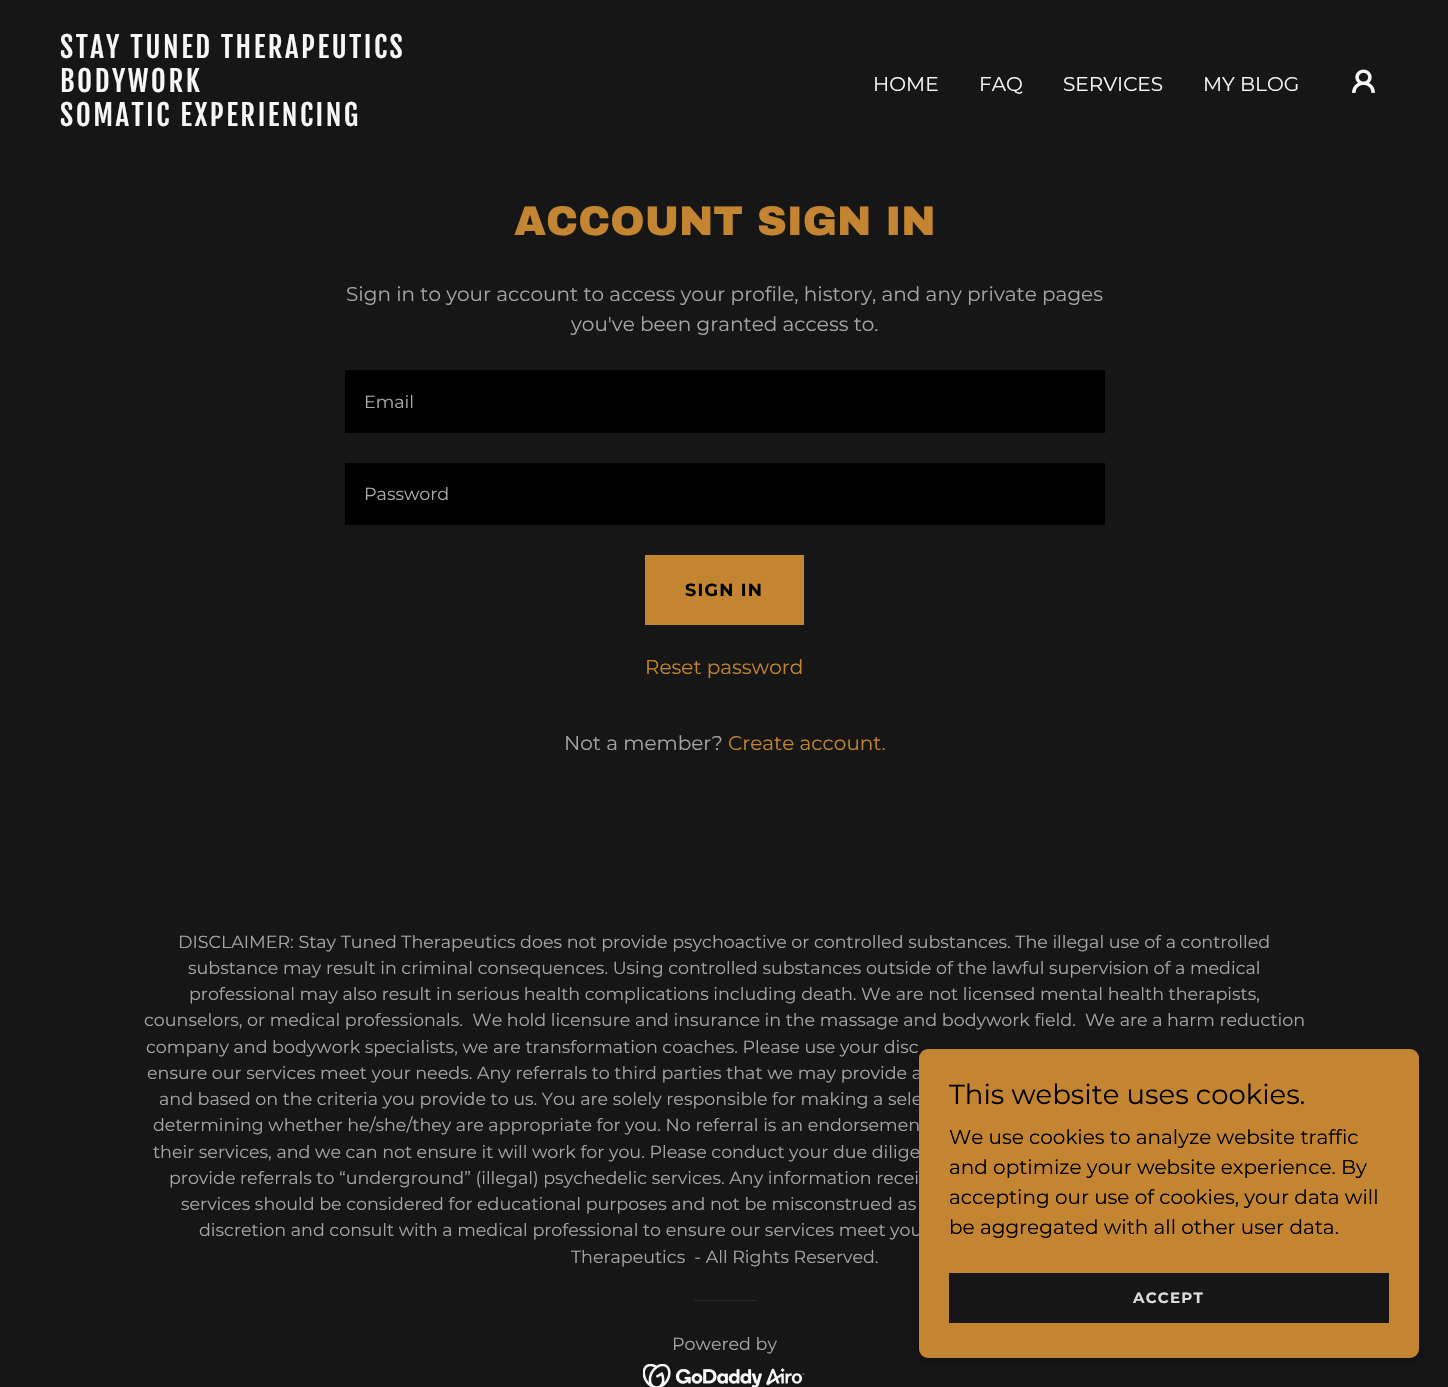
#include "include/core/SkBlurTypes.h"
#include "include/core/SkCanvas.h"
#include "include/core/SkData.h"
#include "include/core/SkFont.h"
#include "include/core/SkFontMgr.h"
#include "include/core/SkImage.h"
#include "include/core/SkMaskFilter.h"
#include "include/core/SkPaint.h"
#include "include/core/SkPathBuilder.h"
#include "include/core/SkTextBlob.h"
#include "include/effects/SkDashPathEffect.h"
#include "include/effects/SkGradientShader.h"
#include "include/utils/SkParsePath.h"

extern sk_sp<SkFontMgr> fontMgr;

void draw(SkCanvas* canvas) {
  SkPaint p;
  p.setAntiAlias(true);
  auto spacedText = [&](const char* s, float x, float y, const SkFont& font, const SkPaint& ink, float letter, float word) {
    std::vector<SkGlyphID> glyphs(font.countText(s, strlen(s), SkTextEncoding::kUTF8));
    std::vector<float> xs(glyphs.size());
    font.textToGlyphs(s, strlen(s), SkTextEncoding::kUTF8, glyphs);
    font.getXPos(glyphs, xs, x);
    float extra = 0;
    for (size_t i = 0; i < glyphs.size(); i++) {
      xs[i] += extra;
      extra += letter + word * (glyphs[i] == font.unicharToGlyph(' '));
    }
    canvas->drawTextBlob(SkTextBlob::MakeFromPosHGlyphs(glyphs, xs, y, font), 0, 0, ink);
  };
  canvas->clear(SkColorSetRGB(22, 22, 22));
  canvas->drawImageRect(SkImages::DeferredFromEncodedData(SkData::MakeFromFileName("images/1.png")), SkRect::MakeLTRB(1352, 69, 1375, 93), SkSamplingOptions());
  p.setColor(SK_ColorBLACK);
  canvas->drawRect(SkRect::MakeLTRB(345, 370, 1105, 433), p);
  canvas->drawRect(SkRect::MakeLTRB(345, 463, 1105, 525), p);
  p.setColor(SkColorSetRGB(196, 133, 50));
  canvas->drawRect(SkRect::MakeLTRB(645, 555, 804, 625), p);
  p.setColor(SkColorSetRGB(42, 42, 42));
  canvas->drawRect(SkRect::MakeLTRB(694, 1300, 756, 1301), p);
  canvas->drawImageRect(SkImages::DeferredFromEncodedData(SkData::MakeFromFileName("images/2.png")), SkRect::MakeLTRB(643, 1364, 805, 1387), SkSamplingOptions());
  p.setColor(SkColorSetARGB(77, 0, 0, 0));
  p.setMaskFilter(SkMaskFilter::MakeBlur(kNormal_SkBlurStyle, 4));
  canvas->drawRoundRect(SkRect::MakeLTRB(919, 1051, 1419, 1360), 9, 9, p);
  p.setMaskFilter(nullptr);
  SkFont font1(fontMgr->matchFamilyStyle("Fjalla One", SkFontStyle::Normal()), 28.75f);
  font1.setSubpixel(true);
  p.setColor(SkColorSetRGB(247, 247, 247));
  spacedText("STAY TUNED THERAPEUTICS", 60, 58, font1, p, 2.5f, 0);
  spacedText("BODYWORK", 60, 92, font1, p, 2.5f, 0);
  spacedText("SOMATIC EXPERIENCING", 60, 126, font1, p, 2.5f, 0);
  SkFont font2(fontMgr->matchFamilyStyle("Montserrat", SkFontStyle::Normal()), 20);
  font2.setSubpixel(true);
  canvas->drawString("HOME", 873, 91, font2, p);
  canvas->drawString("FAQ", 979, 91, font2, p);
  canvas->drawString("SERVICES", 1063, 91, font2, p);
  canvas->drawString("MY BLOG", 1203, 91, font2, p);
  SkFont font3(fontMgr->matchFamilyStyle("Archivo Black", SkFontStyle(900, SkFontStyle::kNormal_Width, SkFontStyle::kUpright_Slant)), 41.25f);
  font3.setSubpixel(true);
  p.setColor(SkColorSetRGB(196, 133, 50));
  canvas->drawString("ACCOUNT SIGN IN", 514, 235, font3, p);
  p.setColor(SkColorSetRGB(164, 164, 164));
  canvas->drawString("Sign in to your account to access your profile, history, and any private pages", 346, 301, font2, p);
  canvas->drawString("you've been granted access to.", 571, 331, font2, p);
  SkFont font4(fontMgr->matchFamilyStyle("Montserrat", SkFontStyle::Normal()), 17.5f);
  font4.setSubpixel(true);
  p.setColor(SkColorSetRGB(171, 171, 171));
  canvas->drawString("Email", 364, 408, font4, p);
  canvas->drawString("Password", 364, 500, font4, p);
  SkFont font5(fontMgr->matchFamilyStyle("Montserrat", SkFontStyle::Bold()), 17.5f);
  font5.setSubpixel(true);
  p.setColor(SK_ColorBLACK);
  spacedText("SIGN IN", 685, 596, font5, p, 1.25f, 0);
  p.setColor(SkColorSetRGB(196, 133, 50));
  canvas->drawString("Reset password", 645, 674, font2, p);
  p.setColor(SkColorSetRGB(164, 164, 164));
  canvas->drawString("Not a member?", 564, 750, font2, p);
  p.setColor(SkColorSetRGB(196, 133, 50));
  canvas->drawString("Create account.", 728, 750, font2, p);
  p.setColor(SkColorSetRGB(164, 164, 164));
  canvas->drawString("DISCLAIMER: Stay Tuned Therapeutics does not provide psychoactive or controlled substances. The illegal use of a controlled", 178, 948, font4, p);
  canvas->drawString("substance may result in criminal consequences. Using controlled substances outside of the lawful supervision of a medical", 188, 974, font4, p);
  canvas->drawString("professional may also result in serious health complications including death. We are not licensed mental health therapists,", 189, 1000, font4, p);
  canvas->drawString("counselors, or medical professionals.  We hold licensure and insurance in the massage and bodywork field.  We are a harm reduction", 144, 1026, font4, p);
  canvas->drawString("company and bodywork specialists, we are transformation coaches. Please use your disc", 146, 1053, font4, p);
  canvas->drawString("ensure our services meet your needs. Any referrals to third parties that we may provide a", 147, 1079, font4, p);
  canvas->drawString("and based on the criteria you provide to us. You are solely responsible for making a sele", 159, 1105, font4, p);
  canvas->drawString("determining whether he/she/they are appropriate for you. No referral is an endorsemen", 153, 1131, font4, p);
  canvas->drawString("their services, and we can not ensure it will work for you. Please conduct your due dilige", 153, 1158, font4, p);
  canvas->drawString("provide referrals to “underground” (illegal) psychedelic services. Any information recei", 169, 1184, font4, p);
  canvas->drawString("services should be considered for educational purposes and not be misconstrued as", 181, 1210, font4, p);
  canvas->drawString("discretion and consult with a medical professional to ensure our services meet you", 199, 1236, font4, p);
  canvas->drawString("Therapeutics  - All Rights Reserved.", 571, 1263, font4, p);
  canvas->drawString("Powered by", 672, 1350, font4, p);
  p.setColor(SkColorSetRGB(196, 133, 50));
  canvas->drawRoundRect(SkRect::MakeLTRB(919, 1049, 1419, 1358), 9, 9, p);
  SkFont font6(fontMgr->matchFamilyStyle("Montserrat", SkFontStyle::Normal()), 27.5f);
  font6.setSubpixel(true);
  p.setColor(SK_ColorBLACK);
  canvas->drawString("This website uses cookies.", 949, 1104, font6, p);
  canvas->drawString("We use cookies to analyze website traffic", 949, 1144, font2, p);
  canvas->drawString("and optimize your website experience. By", 949, 1174, font2, p);
  canvas->drawString("accepting our use of cookies, your data will", 949, 1204, font2, p);
  canvas->drawString("be aggregated with all other user data.", 949, 1234, font2, p);
  p.setColor(SkColorSetRGB(22, 22, 22));
  canvas->drawRect(SkRect::MakeLTRB(949, 1273, 1389, 1323), p);
  SkFont font7(fontMgr->matchFamilyStyle("Montserrat", SkFontStyle::Bold()), 15);
  font7.setSubpixel(true);
  p.setColor(SkColorSetRGB(219, 219, 219));
  spacedText("ACCEPT", 1133, 1303, font7, p, 1.25f, 0);
}
